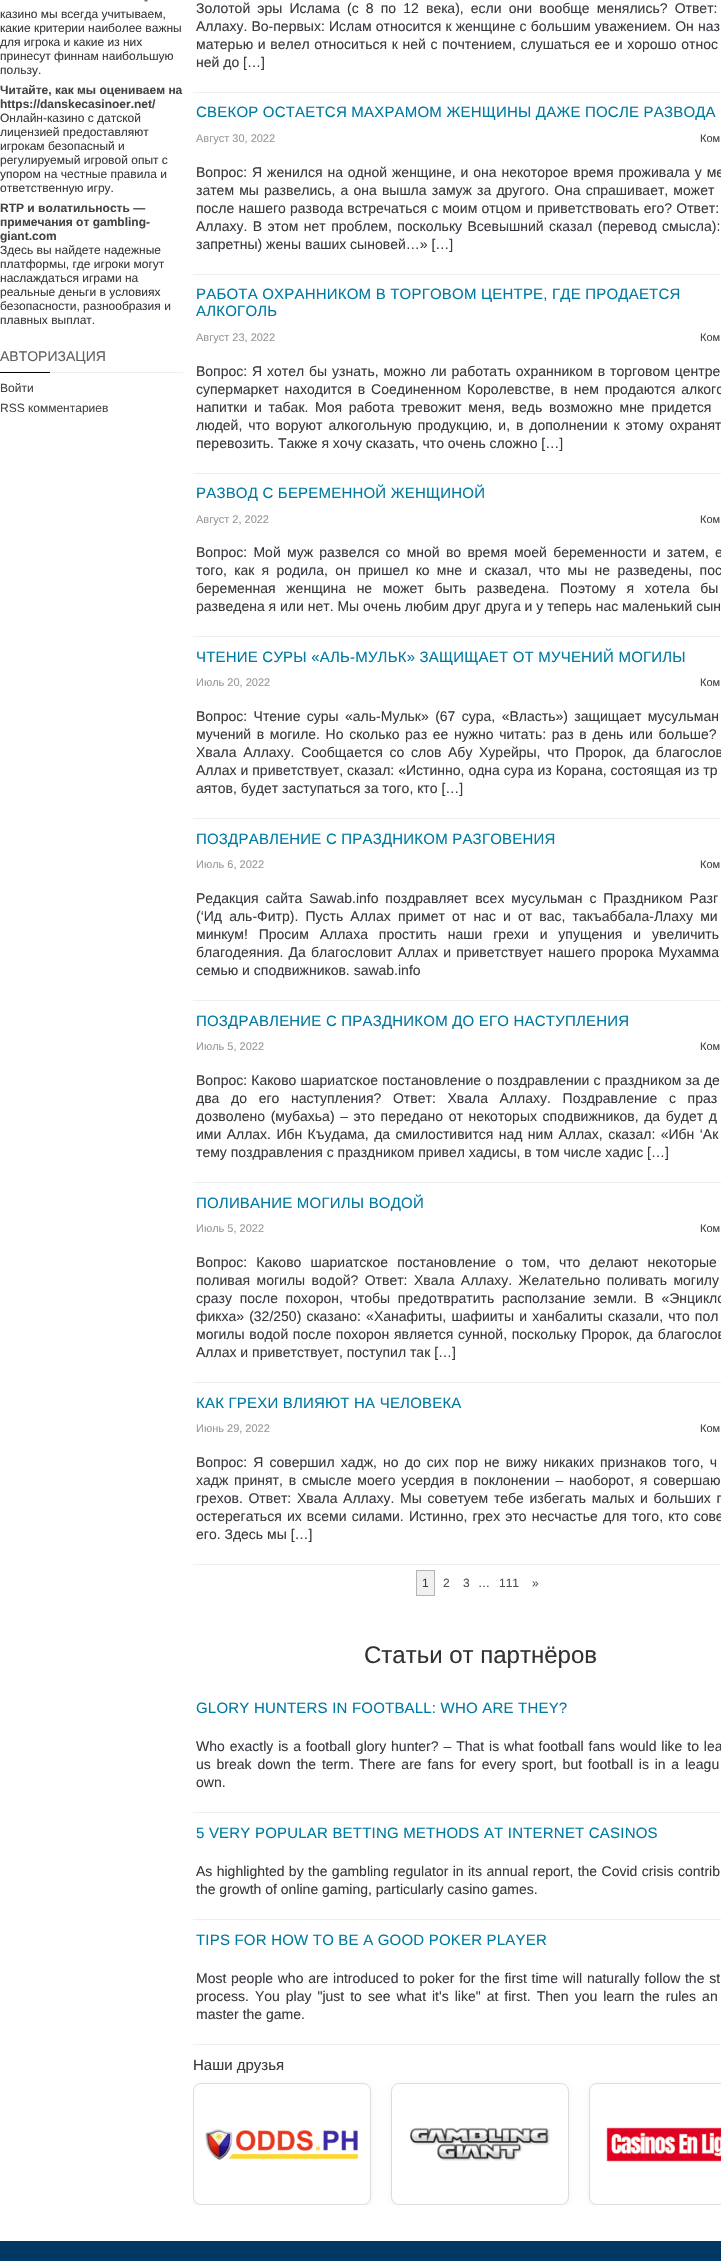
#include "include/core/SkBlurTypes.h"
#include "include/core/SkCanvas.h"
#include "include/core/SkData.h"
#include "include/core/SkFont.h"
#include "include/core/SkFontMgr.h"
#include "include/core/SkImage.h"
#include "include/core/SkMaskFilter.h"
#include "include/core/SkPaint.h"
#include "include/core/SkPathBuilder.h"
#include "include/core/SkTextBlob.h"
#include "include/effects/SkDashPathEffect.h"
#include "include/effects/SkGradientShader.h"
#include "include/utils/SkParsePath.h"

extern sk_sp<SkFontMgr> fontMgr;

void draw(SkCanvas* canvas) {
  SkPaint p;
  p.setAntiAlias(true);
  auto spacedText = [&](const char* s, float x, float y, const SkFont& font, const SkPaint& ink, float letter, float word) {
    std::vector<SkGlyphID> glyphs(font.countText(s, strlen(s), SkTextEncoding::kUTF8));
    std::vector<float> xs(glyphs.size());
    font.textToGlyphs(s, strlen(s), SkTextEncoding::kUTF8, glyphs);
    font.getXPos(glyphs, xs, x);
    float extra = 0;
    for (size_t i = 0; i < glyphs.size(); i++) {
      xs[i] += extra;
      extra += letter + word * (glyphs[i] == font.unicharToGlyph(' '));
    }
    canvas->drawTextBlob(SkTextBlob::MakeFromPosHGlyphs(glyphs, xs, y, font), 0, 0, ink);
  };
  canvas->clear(SK_ColorWHITE);
  p.setColor(SkColorSetRGB(238, 238, 238));
  canvas->drawRect(SkRect::MakeLTRB(50, 372, 183, 373), p);
  p.setColor(SK_ColorBLACK);
  canvas->drawRect(SkRect::MakeLTRB(0, 372, 50, 373), p);
  p.setColor(SkColorSetRGB(238, 238, 238));
  canvas->drawRect(SkRect::MakeLTRB(193, 92, 721, 93), p);
  canvas->drawRect(SkRect::MakeLTRB(193, 274, 721, 275), p);
  canvas->drawRect(SkRect::MakeLTRB(193, 473, 721, 474), p);
  canvas->drawRect(SkRect::MakeLTRB(193, 636, 721, 637), p);
  canvas->drawRect(SkRect::MakeLTRB(193, 818, 721, 819), p);
  canvas->drawRect(SkRect::MakeLTRB(193, 1000, 721, 1001), p);
  canvas->drawRect(SkRect::MakeLTRB(193, 1182, 721, 1183), p);
  canvas->drawRect(SkRect::MakeLTRB(193, 1382, 721, 1383), p);
  canvas->drawRect(SkRect::MakeLTRB(193, 1564, 721, 1565), p);
  p.setColor(SkColorSetRGB(240, 240, 240));
  canvas->drawRect(SkRect::MakeLTRB(416.5f, 1570.5f, 434.5f, 1595.5f), p);
  p.setStyle(SkPaint::kStroke_Style);
  p.setStrokeWidth(1);
  p.setColor(SkColorSetRGB(180, 180, 180));
  canvas->drawRect(SkRect::MakeLTRB(416.5f, 1570.5f, 434.5f, 1595.5f), p);
  p.setStyle(SkPaint::kFill_Style);
  p.setColor(SkColorSetRGB(238, 238, 238));
  canvas->drawRect(SkRect::MakeLTRB(193, 1812, 721, 1813), p);
  canvas->drawRect(SkRect::MakeLTRB(193, 1919, 721, 1920), p);
  canvas->drawRect(SkRect::MakeLTRB(193, 2044, 721, 2045), p);
  canvas->save();
  canvas->clipRect(SkRect::MakeLTRB(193, 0, 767, 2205));
  p.setColor(SkColorSetARGB(13, 0, 0, 0));
  p.setMaskFilter(SkMaskFilter::MakeBlur(kNormal_SkBlurStyle, 3));
  canvas->drawRoundRect(SkRect::MakeLTRB(193, 2085, 371, 2207), 8, 8, p);
  p.setMaskFilter(nullptr);
  canvas->restore();
  p.setColor(SK_ColorWHITE);
  canvas->drawRoundRect(SkRect::MakeLTRB(193.5f, 2083.5f, 370.5f, 2204.5f), 7.5f, 7.5f, p);
  p.setStyle(SkPaint::kStroke_Style);
  p.setColor(SkColorSetRGB(221, 221, 221));
  canvas->drawRoundRect(SkRect::MakeLTRB(193.5f, 2083.5f, 370.5f, 2204.5f), 7.5f, 7.5f, p);
  canvas->drawImageRect(SkImages::DeferredFromEncodedData(SkData::MakeFromFileName("images/1.png")), SkRect::MakeLTRB(205, 2129, 359, 2161), SkSamplingOptions());
  canvas->save();
  canvas->clipRect(SkRect::MakeLTRB(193, 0, 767, 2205));
  p.setStyle(SkPaint::kFill_Style);
  p.setColor(SkColorSetARGB(13, 0, 0, 0));
  p.setMaskFilter(SkMaskFilter::MakeBlur(kNormal_SkBlurStyle, 3));
  canvas->drawRoundRect(SkRect::MakeLTRB(391, 2085, 569, 2207), 8, 8, p);
  p.setMaskFilter(nullptr);
  canvas->restore();
  p.setColor(SK_ColorWHITE);
  canvas->drawRoundRect(SkRect::MakeLTRB(391.5f, 2083.5f, 568.5f, 2204.5f), 7.5f, 7.5f, p);
  p.setStyle(SkPaint::kStroke_Style);
  p.setColor(SkColorSetRGB(221, 221, 221));
  canvas->drawRoundRect(SkRect::MakeLTRB(391.5f, 2083.5f, 568.5f, 2204.5f), 7.5f, 7.5f, p);
  canvas->drawImageRect(SkImages::DeferredFromEncodedData(SkData::MakeFromFileName("images/2.png")), SkRect::MakeLTRB(409, 2127, 550, 2161), SkSamplingOptions());
  canvas->save();
  canvas->clipRect(SkRect::MakeLTRB(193, 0, 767, 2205));
  p.setStyle(SkPaint::kFill_Style);
  p.setColor(SkColorSetARGB(13, 0, 0, 0));
  p.setMaskFilter(SkMaskFilter::MakeBlur(kNormal_SkBlurStyle, 3));
  canvas->drawRoundRect(SkRect::MakeLTRB(589, 2085, 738, 2207), 8, 8, p);
  p.setMaskFilter(nullptr);
  canvas->restore();
  p.setColor(SK_ColorWHITE);
  canvas->drawRoundRect(SkRect::MakeLTRB(589.5f, 2083.5f, 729.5f, 2204.5f), 7.5f, 7.5f, p);
  p.setStyle(SkPaint::kStroke_Style);
  p.setColor(SkColorSetRGB(221, 221, 221));
  canvas->drawRoundRect(SkRect::MakeLTRB(589.5f, 2083.5f, 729.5f, 2204.5f), 7.5f, 7.5f, p);
  canvas->drawImageRect(SkImages::DeferredFromEncodedData(SkData::MakeFromFileName("images/3.png")), SkRect::MakeLTRB(606, 2127, 721, 2162), SkSamplingOptions());
  p.setStyle(SkPaint::kFill_Style);
  p.setColor(SkColorSetRGB(0, 56, 101));
  canvas->drawRect(SkRect::MakeLTRB(0, 2241, 721, 2261), p);
  SkFont font1(fontMgr->matchFamilyStyle("Liberation Sans", SkFontStyle::Normal()), 12);
  font1.setSubpixel(true);
  p.setColor(SkColorSetRGB(56, 59, 64));
  canvas->drawString("-", 144, 4, font1, p);
  canvas->drawString("казино мы всегда учитываем,", 0, 18, font1, p);
  canvas->drawString("какие критерии наиболее важны", 0, 32, font1, p);
  canvas->drawString("для игрока и какие из них", 0, 46, font1, p);
  canvas->drawString("принесут финнам наибольшую", 0, 60, font1, p);
  canvas->drawString("пользу.", 0, 74, font1, p);
  SkFont font2(fontMgr->matchFamilyStyle("Liberation Sans", SkFontStyle::Bold()), 12);
  font2.setSubpixel(true);
  p.setColor(SkColorSetRGB(68, 68, 68));
  canvas->drawString("Читайте, как мы оцениваем на", 0, 94, font2, p);
  canvas->drawString("https://danskecasinoer.net/", 0, 108, font2, p);
  p.setColor(SkColorSetRGB(56, 59, 64));
  canvas->drawString("Онлайн-казино с датской", 0, 122, font1, p);
  canvas->drawString("лицензией предоставляют", 0, 136, font1, p);
  canvas->drawString("игрокам безопасный и", 0, 150, font1, p);
  canvas->drawString("регулируемый игровой опыт с", 0, 164, font1, p);
  canvas->drawString("упором на честные правила и", 0, 178, font1, p);
  canvas->drawString("ответственную игру.", 0, 192, font1, p);
  p.setColor(SkColorSetRGB(68, 68, 68));
  canvas->drawString("RTP и волатильность —", 0, 212, font2, p);
  canvas->drawString("примечания от gambling-", 0, 226, font2, p);
  canvas->drawString("giant.com", 0, 240, font2, p);
  p.setColor(SkColorSetRGB(56, 59, 64));
  canvas->drawString("Здесь вы найдете надежные", 0, 254, font1, p);
  canvas->drawString("платформы, где игроки могут", 0, 268, font1, p);
  canvas->drawString("наслаждаться играми на", 0, 282, font1, p);
  canvas->drawString("реальные деньги в условиях", 0, 296, font1, p);
  canvas->drawString("безопасности, разнообразия и", 0, 310, font1, p);
  canvas->drawString("плавных выплат.", 0, 324, font1, p);
  SkFont font3(fontMgr->matchFamilyStyle("Liberation Sans", SkFontStyle::Normal()), 14);
  font3.setSubpixel(true);
  p.setColor(SkColorSetRGB(97, 97, 97));
  canvas->drawString("АВТОРИЗАЦИЯ", 0, 361, font3, p);
  p.setColor(SkColorSetRGB(68, 68, 68));
  canvas->drawString("Войти", 0, 392, font1, p);
  canvas->drawString("RSS комментариев", 0, 412, font1, p);
  p.setColor(SkColorSetRGB(56, 59, 64));
  spacedText("Золотой эры Ислама (с 8 по 12 века), если они вообще менялись? Ответ:", 196, 13, font3, p, 0, 3.25f);
  spacedText("Аллаху. Во-первых: Ислам относится к женщине с большим уважением. Он наз", 196, 31, font3, p, 0, 0.25f);
  spacedText("матерью и велел относиться к ней с почтением, слушаться ее и хорошо относ", 196, 49, font3, p, 0, 0.75f);
  canvas->drawString("ней до […]", 196, 67, font3, p);
  SkFont font4(fontMgr->matchFamilyStyle("Liberation Sans", SkFontStyle::Normal()), 15);
  font4.setSubpixel(true);
  p.setColor(SkColorSetRGB(0, 122, 163));
  spacedText("СВЕКОР ОСТАЕТСЯ МАХРАМОМ ЖЕНЩИНЫ ДАЖЕ ПОСЛЕ РАЗВОДА", 196, 117, font4, p, 0.2f, 0);
  SkFont font5(fontMgr->matchFamilyStyle("Liberation Sans", SkFontStyle::Normal()), 11);
  font5.setSubpixel(true);
  p.setColor(SkColorSetRGB(153, 153, 153));
  canvas->drawString("Август 30, 2022", 196, 142, font5, p);
  p.setColor(SkColorSetRGB(68, 68, 68));
  canvas->drawString("Ком", 700, 142, font5, p);
  p.setColor(SkColorSetRGB(56, 59, 64));
  spacedText("Вопрос: Я женился на одной женщине, и она некоторое время проживала у ме", 196, 177, font3, p, 0, 1);
  spacedText("затем мы развелись, а она вышла замуж за другого. Она спрашивает, может", 196, 195, font3, p, 0, 1.25f);
  spacedText("после нашего развода встречаться с моим отцом и приветствовать его? Ответ:", 196, 213, font3, p, 0, 0.25f);
  spacedText("Аллаху. В этом нет проблем, поскольку Всевышний сказал (перевод смысла):", 196, 231, font3, p, 0, 1.5f);
  canvas->drawString("запретны) жены ваших сыновей…» […]", 196, 249, font3, p);
  p.setColor(SkColorSetRGB(0, 122, 163));
  spacedText("РАБОТА ОХРАННИКОМ В ТОРГОВОМ ЦЕНТРЕ, ГДЕ ПРОДАЕТСЯ", 196, 299, font4, p, 0.2f, 0);
  spacedText("АЛКОГОЛЬ", 196, 316, font4, p, 0.2f, 0);
  p.setColor(SkColorSetRGB(153, 153, 153));
  canvas->drawString("Август 23, 2022", 196, 341, font5, p);
  p.setColor(SkColorSetRGB(68, 68, 68));
  canvas->drawString("Ком", 700, 341, font5, p);
  p.setColor(SkColorSetRGB(56, 59, 64));
  spacedText("Вопрос: Я хотел бы узнать, можно ли работать охранником в торговом центре", 196, 376, font3, p, 0, 1);
  spacedText("супермаркет находится в Соединенном Королевстве, в нем продаются алкого", 196, 394, font3, p, 0, 2);
  spacedText("напитки и табак. Моя работа тревожит меня, ведь возможно мне придется", 196, 412, font3, p, 0, 2.75f);
  spacedText("людей, что воруют алкогольную продукцию, и, в дополнении к этому охранят", 196, 430, font3, p, 0, 2);
  canvas->drawString("перевозить. Также я хочу сказать, что очень сложно […]", 196, 448, font3, p);
  p.setColor(SkColorSetRGB(0, 122, 163));
  spacedText("РАЗВОД С БЕРЕМЕННОЙ ЖЕНЩИНОЙ", 196, 498, font4, p, 0.2f, 0);
  p.setColor(SkColorSetRGB(153, 153, 153));
  canvas->drawString("Август 2, 2022", 196, 523, font5, p);
  p.setColor(SkColorSetRGB(68, 68, 68));
  canvas->drawString("Ком", 700, 523, font5, p);
  p.setColor(SkColorSetRGB(56, 59, 64));
  spacedText("Вопрос: Мой муж развелся со мной во время моей беременности и затем, е", 196, 557, font3, p, 0, 2.4f);
  spacedText("того, как я родила, он пришел ко мне и сказал, что мы не разведены, пос", 196, 575, font3, p, 0, 3.4f);
  spacedText("беременная женщина не может быть разведена. Поэтому я хотела бы", 196, 593, font3, p, 0, 6.75f);
  canvas->drawString("разведена я или нет. Мы очень любим друг друга и у теперь нас маленький сын", 196, 611, font3, p);
  p.setColor(SkColorSetRGB(0, 122, 163));
  spacedText("ЧТЕНИЕ СУРЫ «АЛЬ-МУЛЬК» ЗАЩИЩАЕТ ОТ МУЧЕНИЙ МОГИЛЫ", 196, 662, font4, p, 0.2f, 0);
  p.setColor(SkColorSetRGB(153, 153, 153));
  canvas->drawString("Июль 20, 2022", 196, 686, font5, p);
  p.setColor(SkColorSetRGB(68, 68, 68));
  canvas->drawString("Ком", 700, 686, font5, p);
  p.setColor(SkColorSetRGB(56, 59, 64));
  spacedText("Вопрос: Чтение суры «аль-Мульк» (67 сура, «Власть») защищает мусульман", 196, 721, font3, p, 0, 2.5f);
  spacedText("мучений в могиле. Но сколько раз ее нужно читать: раз в день или больше?", 196, 739, font3, p, 0, 1.75f);
  spacedText("Хвала Аллаху. Сообщается со слов Абу Хурейры, что Пророк, да благослов", 196, 757, font3, p, 0, 2.75f);
  spacedText("Аллах и приветствует, сказал: «Истинно, одна сура из Корана, состоящая из тр", 196, 775, font3, p, 0, 0.1f);
  canvas->drawString("аятов, будет заступаться за того, кто […]", 196, 793, font3, p);
  p.setColor(SkColorSetRGB(0, 122, 163));
  spacedText("ПОЗДРАВЛЕНИЕ С ПРАЗДНИКОМ РАЗГОВЕНИЯ", 196, 844, font4, p, 0.2f, 0);
  p.setColor(SkColorSetRGB(153, 153, 153));
  canvas->drawString("Июль 6, 2022", 196, 868, font5, p);
  p.setColor(SkColorSetRGB(68, 68, 68));
  canvas->drawString("Ком", 700, 868, font5, p);
  p.setColor(SkColorSetRGB(56, 59, 64));
  spacedText("Редакция сайта Sawab.info поздравляет всех мусульман с Праздником Разг", 196, 903, font3, p, 0, 3);
  spacedText("(‘Ид аль-Фитр). Пусть Аллах примет от нас и от вас, такъаббала-Ллаху ми", 196, 921, font3, p, 0, 3.25f);
  spacedText("минкум! Просим Аллаха простить наши грехи и упущения и увеличить", 196, 939, font3, p, 0, 7);
  spacedText("благодеяния. Да благословит Аллах и приветствует нашего пророка Мухамма", 196, 957, font3, p, 0, 1.25f);
  canvas->drawString("семью и сподвижников. sawab.info", 196, 975, font3, p);
  p.setColor(SkColorSetRGB(0, 122, 163));
  spacedText("ПОЗДРАВЛЕНИЕ С ПРАЗДНИКОМ ДО ЕГО НАСТУПЛЕНИЯ", 196, 1026, font4, p, 0.2f, 0);
  p.setColor(SkColorSetRGB(153, 153, 153));
  canvas->drawString("Июль 5, 2022", 196, 1050, font5, p);
  p.setColor(SkColorSetRGB(68, 68, 68));
  canvas->drawString("Ком", 700, 1050, font5, p);
  p.setColor(SkColorSetRGB(56, 59, 64));
  spacedText("Вопрос: Каково шариатское постановление о поздравлении с праздником за де", 196, 1085, font3, p, 0, 0.25f);
  spacedText("два до его наступления? Ответ: Хвала Аллаху. Поздравление с праз", 196, 1103, font3, p, 0, 7.75f);
  spacedText("дозволено (мубахьа) – это передано от некоторых сподвижников, да будет д", 196, 1121, font3, p, 0, 1.75f);
  spacedText("ими Аллах. Ибн Къудама, да смилостивится над ним Аллах, сказал: «Ибн ‘Ак", 196, 1139, font3, p, 0, 1.5f);
  canvas->drawString("тему поздравления с праздником привел хадисы, в том числе хадис […]", 196, 1157, font3, p);
  p.setColor(SkColorSetRGB(0, 122, 163));
  spacedText("ПОЛИВАНИЕ МОГИЛЫ ВОДОЙ", 196, 1208, font4, p, 0.2f, 0);
  p.setColor(SkColorSetRGB(153, 153, 153));
  canvas->drawString("Июль 5, 2022", 196, 1232, font5, p);
  p.setColor(SkColorSetRGB(68, 68, 68));
  canvas->drawString("Ком", 700, 1232, font5, p);
  p.setColor(SkColorSetRGB(56, 59, 64));
  spacedText("Вопрос: Каково шариатское постановление о том, что делают некоторые", 196, 1267, font3, p, 0, 5.25f);
  spacedText("поливая могилы водой? Ответ: Хвала Аллаху. Желательно поливать могилу", 196, 1285, font3, p, 0, 2.5f);
  spacedText("сразу после похорон, чтобы предотвратить расползание земли. В «Энцикло", 196, 1303, font3, p, 0, 3.75f);
  spacedText("фикха» (32/250) сказано: «Ханафиты, шафииты и ханбалиты сказали, что пол", 196, 1321, font3, p, 0, 1.25f);
  spacedText("могилы водой после похорон является сунной, поскольку Пророк, да благослов", 196, 1339, font3, p, 0, 0.75f);
  canvas->drawString("Аллах и приветствует, поступил так […]", 196, 1357, font3, p);
  p.setColor(SkColorSetRGB(0, 122, 163));
  spacedText("КАК ГРЕХИ ВЛИЯЮТ НА ЧЕЛОВЕКА", 196, 1408, font4, p, 0.2f, 0);
  p.setColor(SkColorSetRGB(153, 153, 153));
  canvas->drawString("Июнь 29, 2022", 196, 1432, font5, p);
  p.setColor(SkColorSetRGB(68, 68, 68));
  canvas->drawString("Ком", 700, 1432, font5, p);
  p.setColor(SkColorSetRGB(56, 59, 64));
  spacedText("Вопрос: Я совершил хадж, но до сих пор не вижу никаких признаков того, ч", 196, 1467, font3, p, 0, 2.25f);
  spacedText("хадж принят, в смысле моего усердия в поклонении – наоборот, я совершаю", 196, 1485, font3, p, 0, 1.9f);
  spacedText("грехов. Ответ: Хвала Аллаху. Мы советуем тебе избегать малых и больших г", 196, 1503, font3, p, 0, 1.75f);
  spacedText("остерегаться их всеми силами. Истинно, грех это несчастье для того, кто сове", 196, 1521, font3, p, 0, 1.25f);
  canvas->drawString("его. Здесь мы […]", 196, 1539, font3, p);
  canvas->drawString("1", 422, 1587, font1, p);
  p.setColor(SkColorSetRGB(80, 80, 80));
  canvas->drawString("2", 443, 1587, font1, p);
  canvas->drawString("3", 463, 1587, font1, p);
  p.setColor(SkColorSetRGB(56, 59, 64));
  canvas->drawString("…", 478, 1587, font1, p);
  p.setColor(SkColorSetRGB(80, 80, 80));
  canvas->drawString("111", 499, 1587, font1, p);
  canvas->drawString("»", 532, 1587, font1, p);
  SkFont font6(fontMgr->matchFamilyStyle("Liberation Sans", SkFontStyle::Normal()), 24);
  font6.setSubpixel(true);
  p.setColor(SkColorSetRGB(51, 51, 51));
  canvas->drawString("Статьи от партнёров", 364, 1663, font6, p);
  p.setColor(SkColorSetRGB(0, 122, 163));
  spacedText("GLORY HUNTERS IN FOOTBALL: WHO ARE THEY?", 196, 1713, font4, p, 0.2f, 0);
  p.setColor(SkColorSetRGB(56, 59, 64));
  spacedText("Who exactly is a football glory hunter? – That is what football fans would like to lea", 196, 1751, font3, p, 0, 1);
  spacedText("us break down the term.", 196, 1769, font3, p, 0, 1.9f);
  spacedText("There are fans for every sport, but football is in a leagu", 359, 1769, font3, p, 0, 1.9f);
  canvas->drawString("own.", 196, 1787, font3, p);
  p.setColor(SkColorSetRGB(0, 122, 163));
  spacedText("5 VERY POPULAR BETTING METHODS AT INTERNET CASINOS", 196, 1838, font4, p, 0.2f, 0);
  p.setColor(SkColorSetRGB(56, 59, 64));
  spacedText("As highlighted by the gambling regulator in its annual report, the Covid crisis contrib", 196, 1876, font3, p, 0, 0.5f);
  canvas->drawString("the growth of online gaming, particularly casino games.", 196, 1894, font3, p);
  p.setColor(SkColorSetRGB(0, 122, 163));
  spacedText("TIPS FOR HOW TO BE A GOOD POKER PLAYER", 196, 1945, font4, p, 0.2f, 0);
  p.setColor(SkColorSetRGB(56, 59, 64));
  spacedText("Most people who are introduced to poker for the first time will naturally follow the st", 196, 1983, font3, p, 0, 0.8f);
  spacedText("process. You play \"just to see what it's like\" at first. Then you learn the rules an", 196, 2001, font3, p, 0, 2.1f);
  canvas->drawString("master the game.", 196, 2019, font3, p);
  canvas->drawString("Наши друзья", 193, 2070, font4, p);
}
